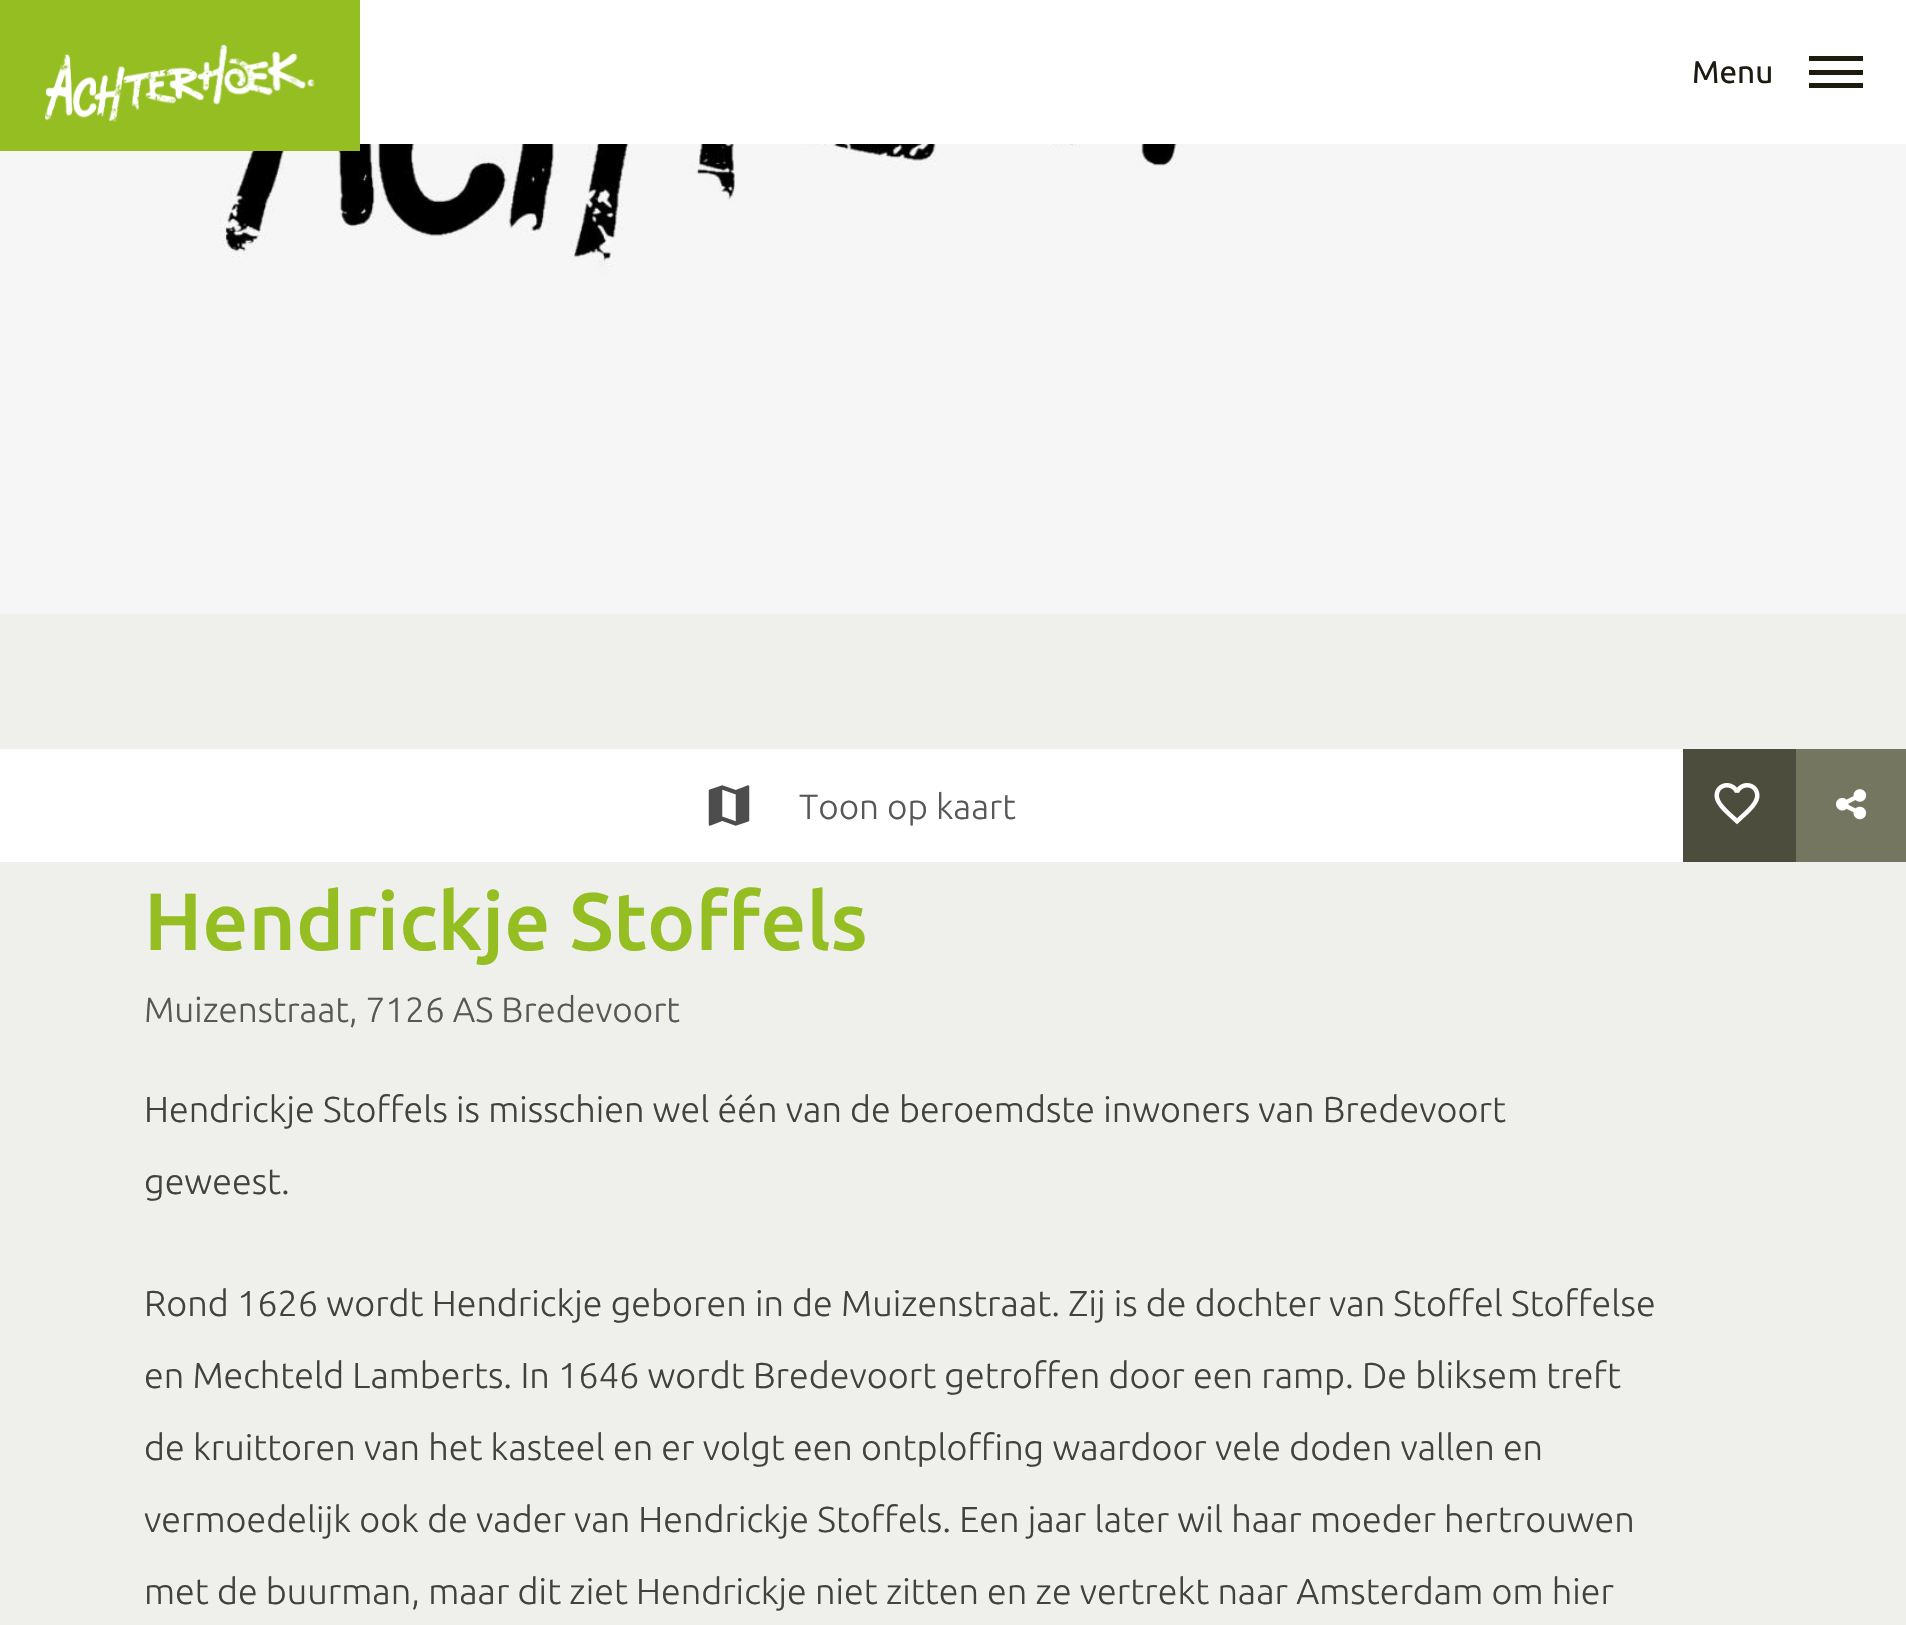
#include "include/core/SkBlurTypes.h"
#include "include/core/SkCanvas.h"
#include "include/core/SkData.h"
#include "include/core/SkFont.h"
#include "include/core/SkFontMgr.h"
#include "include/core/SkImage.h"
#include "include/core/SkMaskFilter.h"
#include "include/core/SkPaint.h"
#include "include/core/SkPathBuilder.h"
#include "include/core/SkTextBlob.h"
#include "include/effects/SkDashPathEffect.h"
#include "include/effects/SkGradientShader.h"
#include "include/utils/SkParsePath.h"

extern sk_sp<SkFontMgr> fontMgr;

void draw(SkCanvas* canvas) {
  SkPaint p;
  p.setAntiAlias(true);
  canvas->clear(SkColorSetRGB(239, 239, 236));
  p.setColor(SK_ColorWHITE);
  canvas->drawRect(SkRect::MakeLTRB(360, 0, 1906, 144), p);
  canvas->drawImageRect(SkImages::DeferredFromEncodedData(SkData::MakeFromFileName("images/2.png")), SkRect::MakeLTRB(0, 144, 1906, 614), SkSamplingOptions());
  p.setColor(SkColorSetRGB(149, 190, 34));
  canvas->drawRect(SkRect::MakeLTRB(0, 0, 360, 151), p);
  canvas->drawImageRect(SkImages::DeferredFromEncodedData(SkData::MakeFromFileName("images/1.png")), SkRect::MakeLTRB(45, 45, 315, 122), SkSamplingOptions());
  p.setColor(SkColorSetRGB(29, 26, 16));
  canvas->drawRect(SkRect::MakeLTRB(1809, 70, 1863, 75), p);
  canvas->drawRect(SkRect::MakeLTRB(1809, 56, 1863, 61), p);
  canvas->drawRect(SkRect::MakeLTRB(1809, 83, 1863, 88), p);
  p.setColor(SK_ColorWHITE);
  canvas->drawRect(SkRect::MakeLTRB(0, 749, 1683, 862), p);
  canvas->drawImageRect(SkImages::DeferredFromEncodedData(SkData::MakeFromFileName("images/3.png")), SkRect::MakeLTRB(708, 785, 750, 826), SkSamplingOptions());
  p.setColor(SkColorSetRGB(76, 77, 60));
  canvas->drawRect(SkRect::MakeLTRB(1683, 749, 1796, 862), p);
  canvas->drawImageRect(SkImages::DeferredFromEncodedData(SkData::MakeFromFileName("images/4.png")), SkRect::MakeLTRB(1714, 783, 1760, 825), SkSamplingOptions());
  p.setColor(SkColorSetRGB(116, 118, 95));
  canvas->drawRect(SkRect::MakeLTRB(1796, 749, 1906, 862), p);
  canvas->drawImageRect(SkImages::DeferredFromEncodedData(SkData::MakeFromFileName("images/5.png")), SkRect::MakeLTRB(1836, 789, 1867, 820), SkSamplingOptions());
  SkFont font1(fontMgr->matchFamilyStyle("Ubuntu", SkFontStyle::Normal()), 31.5f);
  font1.setSubpixel(true);
  p.setColor(SkColorSetRGB(29, 26, 16));
  canvas->drawString("Menu", 1692, 83, font1, p);
  SkFont font2(fontMgr->matchFamilyStyle("Ubuntu", SkFontStyle(300, SkFontStyle::kNormal_Width, SkFontStyle::kUpright_Slant)), 35.1f);
  font2.setSubpixel(true);
  p.setColor(SkColorSetRGB(87, 87, 87));
  canvas->drawString("Toon op kaart", 799, 819, font2, p);
  canvas->drawString("Muizenstraat, 7126 AS Bredevoort", 144, 1022, font2, p);
  SkFont font3(fontMgr->matchFamilyStyle("Ubuntu", SkFontStyle(500, SkFontStyle::kNormal_Width, SkFontStyle::kUpright_Slant)), 81);
  font3.setSubpixel(true);
  p.setColor(SkColorSetRGB(149, 190, 34));
  canvas->drawString("Hendrickje Stoffels", 144, 950, font3, p);
  SkFont font4(fontMgr->matchFamilyStyle("Ubuntu", SkFontStyle(300, SkFontStyle::kNormal_Width, SkFontStyle::kUpright_Slant)), 36);
  font4.setSubpixel(true);
  p.setColor(SkColorSetRGB(65, 65, 64));
  canvas->drawString("Hendrickje Stoffels is misschien wel één van de beroemdste inwoners van Bredevoort", 144, 1122, font4, p);
  canvas->drawString("geweest.", 144, 1194, font4, p);
  canvas->drawString("Rond 1626 wordt Hendrickje geboren in de Muizenstraat. Zij is de dochter van Stoffel Stoffelse", 144, 1316, font4, p);
  canvas->drawString("en Mechteld Lamberts. In 1646 wordt Bredevoort getroffen door een ramp. De bliksem treft", 144, 1388, font4, p);
  canvas->drawString("de kruittoren van het kasteel en er volgt een ontploffing waardoor vele doden vallen en", 144, 1460, font4, p);
  canvas->drawString("vermoedelijk ook de vader van Hendrickje Stoffels. Een jaar later wil haar moeder hertrouwen", 144, 1532, font4, p);
  canvas->drawString("met de buurman, maar dit ziet Hendrickje niet zitten en ze vertrekt naar Amsterdam om hier", 144, 1604, font4, p);
}
